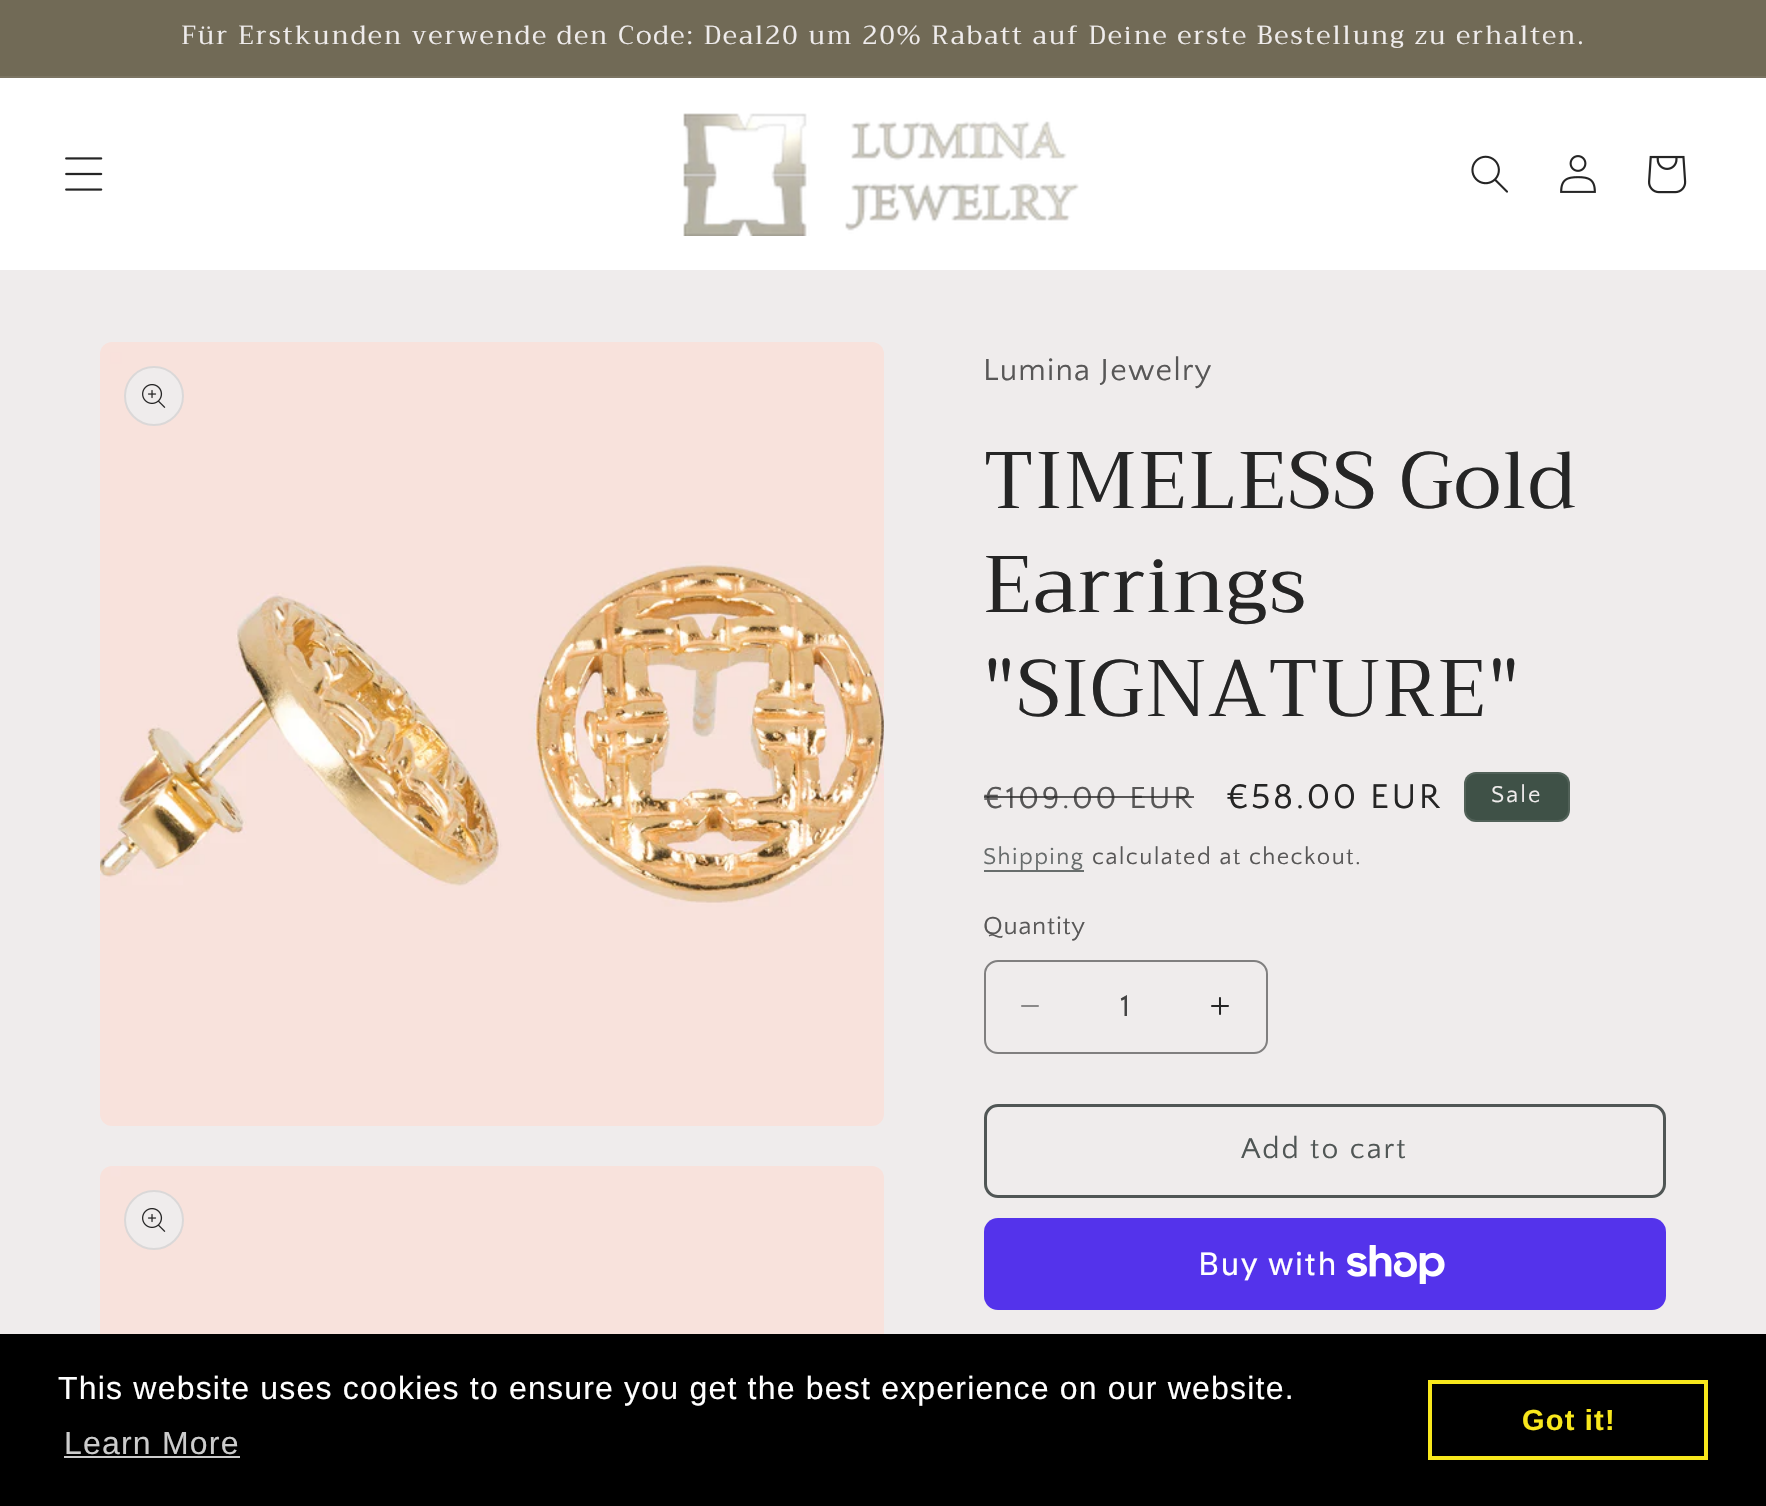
#include "include/core/SkBlurTypes.h"
#include "include/core/SkCanvas.h"
#include "include/core/SkData.h"
#include "include/core/SkFont.h"
#include "include/core/SkFontMgr.h"
#include "include/core/SkImage.h"
#include "include/core/SkMaskFilter.h"
#include "include/core/SkPaint.h"
#include "include/core/SkPathBuilder.h"
#include "include/core/SkTextBlob.h"
#include "include/effects/SkDashPathEffect.h"
#include "include/effects/SkGradientShader.h"
#include "include/utils/SkParsePath.h"

extern sk_sp<SkFontMgr> fontMgr;

void draw(SkCanvas* canvas) {
  SkPaint p;
  p.setAntiAlias(true);
  auto spacedText = [&](const char* s, float x, float y, const SkFont& font, const SkPaint& ink, float letter, float word) {
    std::vector<SkGlyphID> glyphs(font.countText(s, strlen(s), SkTextEncoding::kUTF8));
    std::vector<float> xs(glyphs.size());
    font.textToGlyphs(s, strlen(s), SkTextEncoding::kUTF8, glyphs);
    font.getXPos(glyphs, xs, x);
    float extra = 0;
    for (size_t i = 0; i < glyphs.size(); i++) {
      xs[i] += extra;
      extra += letter + word * (glyphs[i] == font.unicharToGlyph(' '));
    }
    canvas->drawTextBlob(SkTextBlob::MakeFromPosHGlyphs(glyphs, xs, y, font), 0, 0, ink);
  };
  canvas->clear(SkColorSetRGB(239, 236, 236));
  p.setColor(SkColorSetRGB(113, 106, 86));
  canvas->drawRect(SkRect::MakeLTRB(0, 0, 1766, 76), p);
  p.setColor(SkColorSetRGB(123, 116, 98));
  canvas->drawRect(SkRect::MakeLTRB(0, 76, 1766, 78), p);
  p.setColor(SK_ColorWHITE);
  canvas->drawRect(SkRect::MakeLTRB(0, 78, 1766, 270), p);
  canvas->drawImageRect(SkImages::DeferredFromEncodedData(SkData::MakeFromFileName("images/1.png")), SkRect::MakeLTRB(65, 157, 103, 191), SkSamplingOptions());
  canvas->drawImageRect(SkImages::DeferredFromEncodedData(SkData::MakeFromFileName("images/2.png")), SkRect::MakeLTRB(683, 113, 1079, 236), SkSamplingOptions());
  canvas->drawImageRect(SkImages::DeferredFromEncodedData(SkData::MakeFromFileName("images/3.png")), SkRect::MakeLTRB(1471, 155, 1508, 193), SkSamplingOptions());
  canvas->drawImageRect(SkImages::DeferredFromEncodedData(SkData::MakeFromFileName("images/4.png")), SkRect::MakeLTRB(1560, 155, 1596, 193), SkSamplingOptions());
  canvas->drawImageRect(SkImages::DeferredFromEncodedData(SkData::MakeFromFileName("images/5.png")), SkRect::MakeLTRB(1648, 155, 1687, 194), SkSamplingOptions());
  canvas->drawImageRect(SkImages::DeferredFromEncodedData(SkData::MakeFromFileName("images/6.png")), SkRect::MakeLTRB(100, 342, 884, 1126), SkSamplingOptions());
  p.setColor(SkColorSetRGB(239, 236, 236));
  canvas->drawCircle(154, 396, 30, p);
  p.setStyle(SkPaint::kStroke_Style);
  p.setStrokeWidth(2);
  p.setColor(SkColorSetARGB(26, 37, 37, 37));
  canvas->drawCircle(154, 396, 29, p);
  canvas->drawImageRect(SkImages::DeferredFromEncodedData(SkData::MakeFromFileName("images/7.png")), SkRect::MakeLTRB(142, 384, 166, 408), SkSamplingOptions());
  canvas->drawImageRect(SkImages::DeferredFromEncodedData(SkData::MakeFromFileName("images/8.png")), SkRect::MakeLTRB(100, 1166, 884, 1334), SkSamplingOptions());
  p.setStyle(SkPaint::kFill_Style);
  p.setColor(SkColorSetRGB(239, 236, 236));
  canvas->drawCircle(154, 1220, 30, p);
  p.setStyle(SkPaint::kStroke_Style);
  p.setColor(SkColorSetARGB(26, 37, 37, 37));
  canvas->drawCircle(154, 1220, 29, p);
  canvas->drawImageRect(SkImages::DeferredFromEncodedData(SkData::MakeFromFileName("images/7.png")), SkRect::MakeLTRB(142, 1208, 166, 1232), SkSamplingOptions());
  p.setStyle(SkPaint::kFill_Style);
  p.setColor(SkColorSetRGB(63, 81, 71));
  canvas->drawRoundRect(SkRect::MakeLTRB(1464, 772, 1570, 822), 12, 12, p);
  p.setStyle(SkPaint::kStroke_Style);
  p.setColor(SkColorSetARGB(26, 239, 236, 236));
  canvas->drawRoundRect(SkRect::MakeLTRB(1465, 773, 1569, 821), 11, 11, p);
  p.setStyle(SkPaint::kFill_Style);
  p.setColor(SkColorSetRGB(104, 109, 108));
  canvas->drawRect(SkRect::MakeLTRB(984, 870, 1084, 872), p);
  canvas->drawImageRect(SkImages::DeferredFromEncodedData(SkData::MakeFromFileName("images/9.png")), SkRect::MakeLTRB(1021, 1005, 1039, 1007), SkSamplingOptions());
  canvas->drawImageRect(SkImages::DeferredFromEncodedData(SkData::MakeFromFileName("images/10.png")), SkRect::MakeLTRB(1211, 997, 1229, 1015), SkSamplingOptions());
  p.setStyle(SkPaint::kStroke_Style);
  p.setColor(SkColorSetRGB(128, 127, 127));
  canvas->drawRoundRect(SkRect::MakeLTRB(985, 961, 1267, 1053), 13, 13, p);
  p.setStrokeWidth(3);
  p.setColor(SkColorSetRGB(80, 86, 85));
  canvas->drawRoundRect(SkRect::MakeLTRB(985.5f, 1105.5f, 1664.5f, 1196.5f), 12.5f, 12.5f, p);
  p.setStyle(SkPaint::kFill_Style);
  p.setColor(SkColorSetRGB(84, 51, 235));
  canvas->drawRoundRect(SkRect::MakeLTRB(984, 1218, 1666, 1310), 14, 14, p);
  canvas->drawImageRect(SkImages::DeferredFromEncodedData(SkData::MakeFromFileName("images/11.png")), SkRect::MakeLTRB(1347, 1245, 1445, 1284), SkSamplingOptions());
  p.setColor(SK_ColorBLACK);
  canvas->drawRect(SkRect::MakeLTRB(0, 1334, 1766, 1506), p);
  p.setColor(SkColorSetRGB(204, 204, 204));
  canvas->drawRect(SkRect::MakeLTRB(64, 1456, 240, 1458), p);
  p.setStyle(SkPaint::kStroke_Style);
  p.setStrokeWidth(4);
  p.setColor(SkColorSetRGB(248, 231, 28));
  canvas->drawRect(SkRect::MakeLTRB(1430, 1382, 1706, 1458), p);
  SkFont font1(fontMgr->matchFamilyStyle("Trirong", SkFontStyle::Normal()), 26);
  font1.setSubpixel(true);
  p.setStyle(SkPaint::kFill_Style);
  p.setColor(SkColorSetRGB(239, 236, 236));
  spacedText("Für Erstkunden verwende den Code: Deal20 um 20% Rabatt auf Deine erste Bestellung zu erhalten.", 181, 44, font1, p, 2, 0);
  SkFont font2(fontMgr->matchFamilyStyle("Quattrocento Sans", SkFontStyle::Normal()), 32);
  font2.setSubpixel(true);
  p.setColor(SkColorSetRGB(88, 87, 87));
  spacedText("Lumina Jewelry", 983, 380, font2, p, 1.2f, 0);
  SkFont font3(fontMgr->matchFamilyStyle("Trirong", SkFontStyle::Normal()), 80);
  font3.setSubpixel(true);
  p.setColor(SkColorSetRGB(37, 37, 37));
  spacedText("TIMELESS Gold", 983, 508, font3, p, 1.2f, 0);
  spacedText("Earrings", 983, 612, font3, p, 1.2f, 0);
  spacedText("\"SIGNATURE\"", 983, 716, font3, p, 1.2f, 0);
  p.setColor(SkColorSetRGB(88, 87, 87));
  spacedText("€109.00 EUR", 983, 808, font2, p, 2.6f, 0);
  p.setColor(SkColorSetARGB(191, 37, 37, 37));
  canvas->drawRect(SkRect::MakeLTRB(984, 796, 1194, 798), p);
  SkFont font4(fontMgr->matchFamilyStyle("Quattrocento Sans", SkFontStyle::Normal()), 36);
  font4.setSubpixel(true);
  p.setColor(SkColorSetRGB(37, 37, 37));
  spacedText("€58.00 EUR", 1226, 808, font4, p, 2.6f, 0);
  SkFont font5(fontMgr->matchFamilyStyle("Quattrocento Sans", SkFontStyle::Normal()), 24);
  font5.setSubpixel(true);
  p.setColor(SkColorSetRGB(239, 236, 236));
  spacedText("Sale", 1491, 802, font5, p, 2, 0);
  p.setColor(SkColorSetRGB(104, 108, 108));
  spacedText("Shipping", 983, 864, font5, p, 1.4f, 0);
  p.setColor(SkColorSetRGB(88, 87, 87));
  spacedText("calculated at checkout.", 1092, 864, font5, p, 1.4f, 0);
  SkFont font6(fontMgr->matchFamilyStyle("Quattrocento Sans", SkFontStyle::Normal()), 26);
  font6.setSubpixel(true);
  spacedText("Quantity", 983, 934, font6, p, 0.75f, 0);
  p.setColor(SkColorSetRGB(67, 67, 67));
  canvas->drawString("1", 1120, 1016, font2, p);
  SkFont font7(fontMgr->matchFamilyStyle("Quattrocento Sans", SkFontStyle::Normal()), 30);
  font7.setSubpixel(true);
  p.setColor(SkColorSetRGB(80, 86, 85));
  spacedText("Add to cart", 1241, 1158, font7, p, 2, 0);
  SkFont font8(fontMgr->matchFamilyStyle("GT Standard", SkFontStyle::Normal()), 32);
  font8.setSubpixel(true);
  p.setColor(SK_ColorWHITE);
  spacedText("Buy with", 1198, 1275, font8, p, 1.2f, 0);
  SkFont font9(fontMgr->matchFamilyStyle("Liberation Sans", SkFontStyle::Normal()), 32);
  font9.setSubpixel(true);
  spacedText("This website uses cookies to ensure you get the best experience on our website.", 58, 1399, font9, p, 1.2f, 0);
  p.setColor(SkColorSetRGB(204, 204, 204));
  spacedText("Learn More", 64, 1454, font9, p, 1.2f, 0);
  SkFont font10(fontMgr->matchFamilyStyle("Liberation Sans", SkFontStyle::Bold()), 29);
  font10.setSubpixel(true);
  p.setColor(SkColorSetRGB(248, 231, 28));
  spacedText("Got it!", 1522, 1430, font10, p, 1.2f, 0);
}
